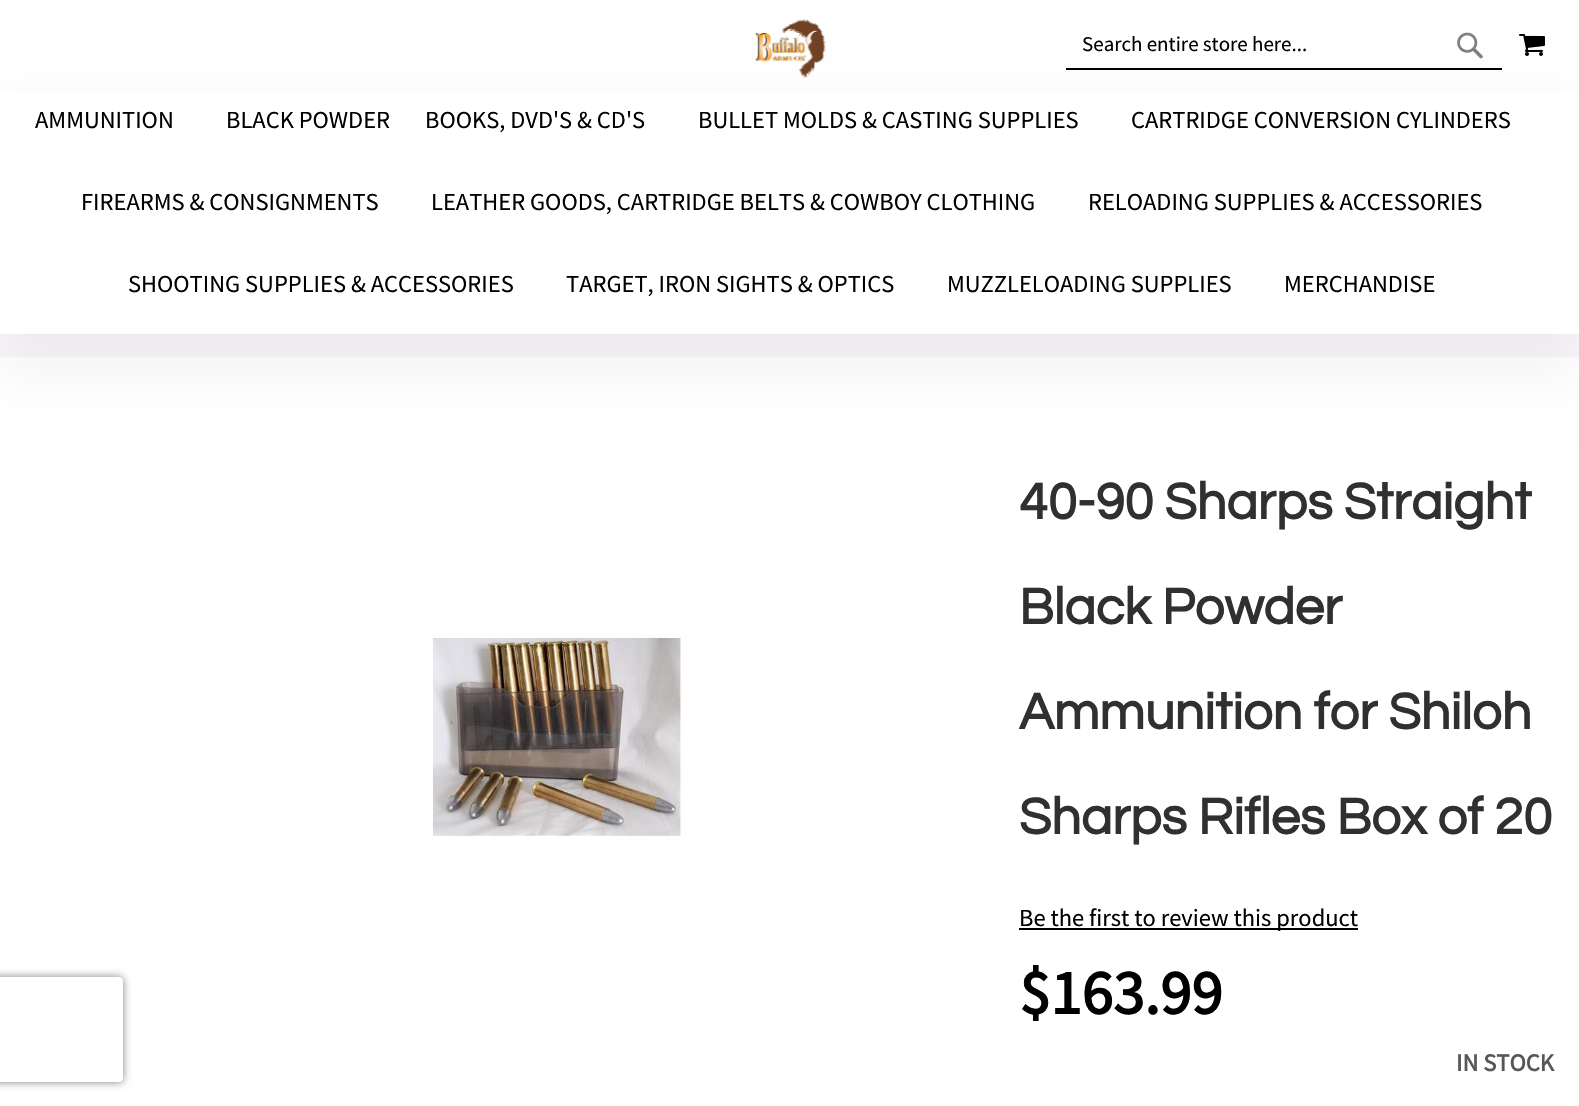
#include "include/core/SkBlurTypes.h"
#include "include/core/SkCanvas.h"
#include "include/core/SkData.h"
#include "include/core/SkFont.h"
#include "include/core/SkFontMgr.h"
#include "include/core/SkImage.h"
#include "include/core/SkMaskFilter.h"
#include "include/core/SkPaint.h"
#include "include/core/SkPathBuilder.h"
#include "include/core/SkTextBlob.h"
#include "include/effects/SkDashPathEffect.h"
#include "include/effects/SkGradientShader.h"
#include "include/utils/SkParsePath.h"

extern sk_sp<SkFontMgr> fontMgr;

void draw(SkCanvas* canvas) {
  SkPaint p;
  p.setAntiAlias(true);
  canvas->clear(SK_ColorWHITE);
  p.setColor(SkColorSetRGB(249, 247, 252));
  canvas->drawRect(SkRect::MakeLTRB(0, 334, 1579, 357), p);
  p.setColor(SkColorSetARGB(13, 0, 0, 0));
  p.setMaskFilter(SkMaskFilter::MakeBlur(kNormal_SkBlurStyle, 26));
  canvas->drawRect(SkRect::MakeLTRB(0, 114, 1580, 369), p);
  p.setMaskFilter(nullptr);
  canvas->drawImageRect(SkImages::DeferredFromEncodedData(SkData::MakeFromFileName("images/1.png")), SkRect::MakeLTRB(755, 19, 826, 78), SkSamplingOptions());
  p.setColor(SK_ColorBLACK);
  canvas->drawRect(SkRect::MakeLTRB(1066, 68, 1502, 70), p);
  canvas->drawImageRect(SkImages::DeferredFromEncodedData(SkData::MakeFromFileName("images/2.png")), SkRect::MakeLTRB(1457, 32, 1483, 59), SkSamplingOptions());
  canvas->drawImageRect(SkImages::DeferredFromEncodedData(SkData::MakeFromFileName("images/3.png")), SkRect::MakeLTRB(1519, 33, 1545, 56), SkSamplingOptions());
  p.setColor(SK_ColorWHITE);
  canvas->drawRect(SkRect::MakeLTRB(0, 92, 1579, 334), p);
  canvas->drawImageRect(SkImages::DeferredFromEncodedData(SkData::MakeFromFileName("images/4.png")), SkRect::MakeLTRB(432, 635, 685, 836), SkSamplingOptions());
  p.setColor(SK_ColorBLACK);
  canvas->drawRect(SkRect::MakeLTRB(1019, 928, 1358, 930), p);
  canvas->save();
  canvas->clipPath(SkPathBuilder(SkPathFillType::kEvenOdd).moveTo(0, 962).lineTo(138, 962).lineTo(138, 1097).lineTo(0, 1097).close().moveTo(-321, 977).lineTo(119, 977).cubicTo(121, 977, 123, 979, 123, 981).lineTo(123, 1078).cubicTo(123, 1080, 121, 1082, 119, 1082).lineTo(-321, 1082).cubicTo(-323, 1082, -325, 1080, -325, 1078).lineTo(-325, 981).cubicTo(-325, 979, -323, 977, -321, 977).close().detach(), true);
  p.setColor(SkColorSetRGB(128, 128, 128));
  p.setMaskFilter(SkMaskFilter::MakeBlur(kNormal_SkBlurStyle, 4.5f));
  canvas->drawRoundRect(SkRect::MakeLTRB(-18, 977, 123, 1082), 4, 4, p);
  p.setMaskFilter(nullptr);
  canvas->restore();
  SkFont font1(fontMgr->matchFamilyStyle("Source Sans Pro", SkFontStyle::Normal()), 21);
  font1.setSubpixel(true);
  p.setColor(SK_ColorBLACK);
  canvas->drawString("Search entire store here...", 1082, 51, font1, p);
  SkFont font2(fontMgr->matchFamilyStyle("Source Sans Pro", SkFontStyle::Normal()), 24.5f);
  font2.setSubpixel(true);
  canvas->drawString("AMMUNITION", 35, 128, font2, p);
  canvas->drawString("BLACK POWDER", 226, 128, font2, p);
  canvas->drawString("BOOKS, DVD'S & CD'S", 425, 128, font2, p);
  canvas->drawString("BULLET MOLDS & CASTING SUPPLIES", 698, 128, font2, p);
  canvas->drawString("CARTRIDGE CONVERSION CYLINDERS", 1131, 128, font2, p);
  canvas->drawString("FIREARMS & CONSIGNMENTS", 81, 210, font2, p);
  canvas->drawString("LEATHER GOODS, CARTRIDGE BELTS & COWBOY CLOTHING", 431, 210, font2, p);
  canvas->drawString("RELOADING SUPPLIES & ACCESSORIES", 1088, 210, font2, p);
  canvas->drawString("SHOOTING SUPPLIES & ACCESSORIES", 128, 292, font2, p);
  canvas->drawString("TARGET, IRON SIGHTS & OPTICS", 566, 292, font2, p);
  canvas->drawString("MUZZLELOADING SUPPLIES", 947, 292, font2, p);
  canvas->drawString("MERCHANDISE", 1284, 292, font2, p);
  SkFont font3(fontMgr->matchFamilyStyle("Questrial", SkFontStyle::Bold()), 52.5f);
  font3.setSubpixel(true);
  p.setColor(SkColorSetRGB(48, 48, 48));
  canvas->drawString("40-90 Sharps Straight", 1019, 519, font3, p);
  canvas->drawString("Black Powder", 1019, 624, font3, p);
  canvas->drawString("Ammunition for Shiloh", 1019, 729, font3, p);
  canvas->drawString("Sharps Rifles Box of 20", 1019, 834, font3, p);
  p.setColor(SK_ColorBLACK);
  canvas->drawString("Be the first to review this product", 1019, 926, font2, p);
  SkFont font4(fontMgr->matchFamilyStyle("Source Sans Pro", SkFontStyle::Bold()), 63);
  font4.setSubpixel(true);
  canvas->drawString("$163.99", 1019, 1014, font4, p);
  SkFont font5(fontMgr->matchFamilyStyle("Source Sans Pro", SkFontStyle::Bold()), 24.5f);
  font5.setSubpixel(true);
  p.setColor(SkColorSetRGB(87, 87, 87));
  canvas->drawString("IN STOCK", 1456, 1071, font5, p);
}
